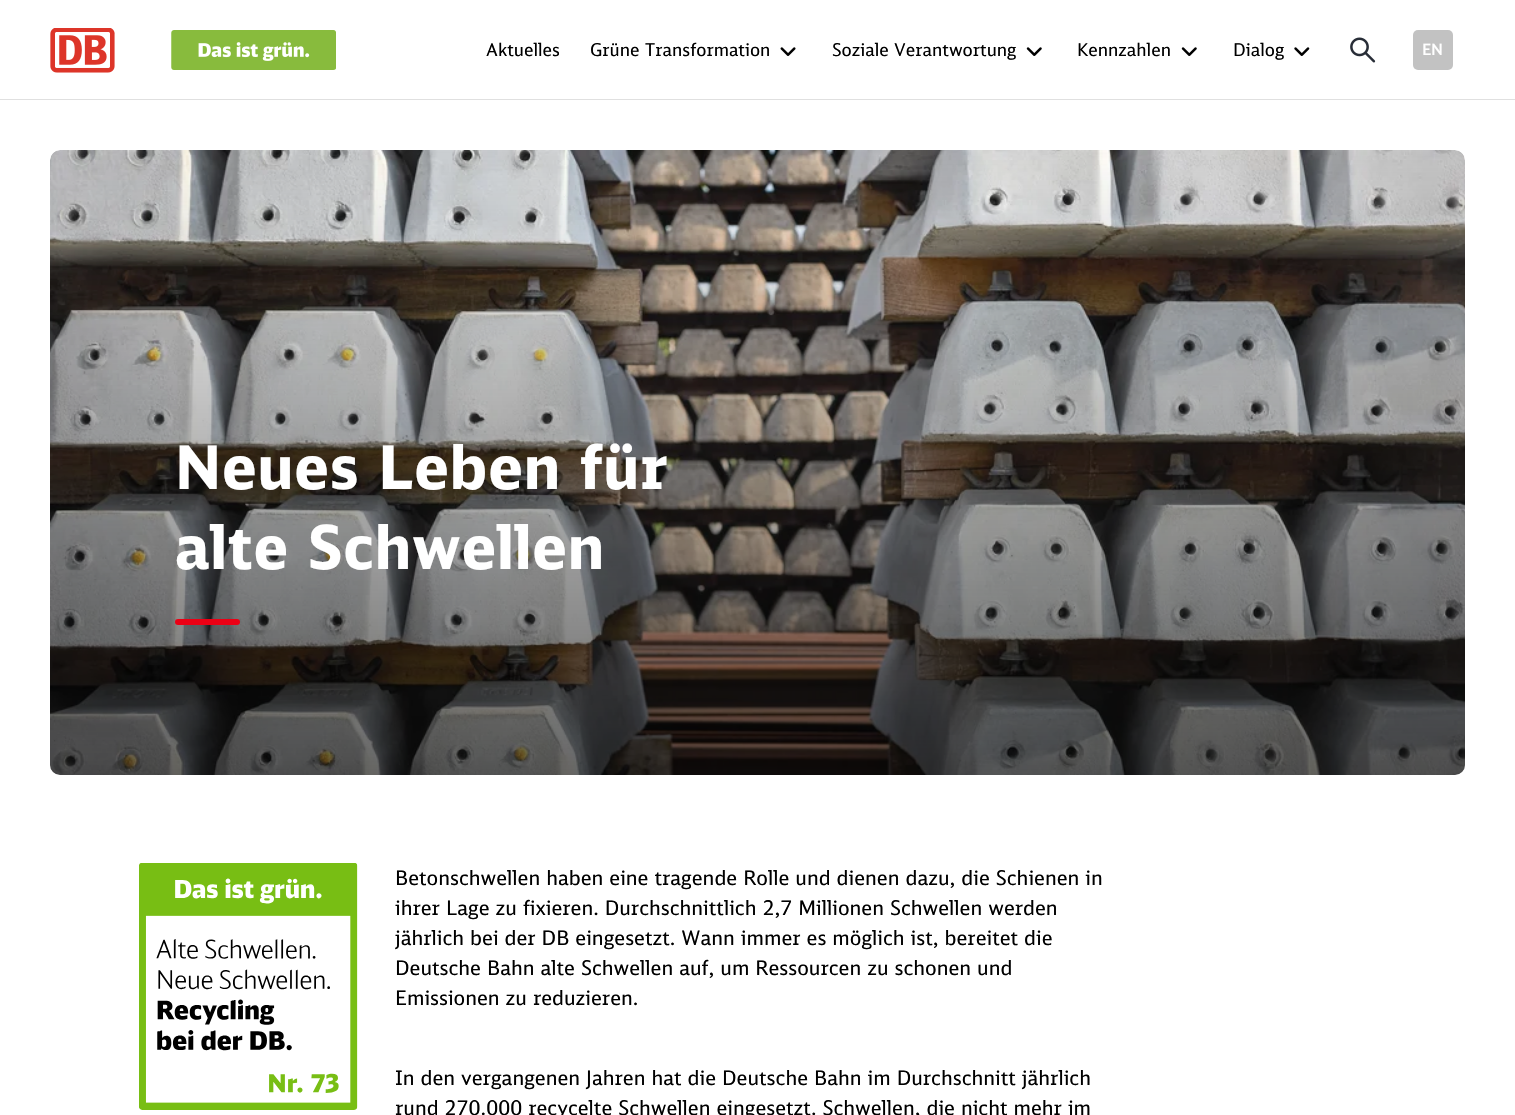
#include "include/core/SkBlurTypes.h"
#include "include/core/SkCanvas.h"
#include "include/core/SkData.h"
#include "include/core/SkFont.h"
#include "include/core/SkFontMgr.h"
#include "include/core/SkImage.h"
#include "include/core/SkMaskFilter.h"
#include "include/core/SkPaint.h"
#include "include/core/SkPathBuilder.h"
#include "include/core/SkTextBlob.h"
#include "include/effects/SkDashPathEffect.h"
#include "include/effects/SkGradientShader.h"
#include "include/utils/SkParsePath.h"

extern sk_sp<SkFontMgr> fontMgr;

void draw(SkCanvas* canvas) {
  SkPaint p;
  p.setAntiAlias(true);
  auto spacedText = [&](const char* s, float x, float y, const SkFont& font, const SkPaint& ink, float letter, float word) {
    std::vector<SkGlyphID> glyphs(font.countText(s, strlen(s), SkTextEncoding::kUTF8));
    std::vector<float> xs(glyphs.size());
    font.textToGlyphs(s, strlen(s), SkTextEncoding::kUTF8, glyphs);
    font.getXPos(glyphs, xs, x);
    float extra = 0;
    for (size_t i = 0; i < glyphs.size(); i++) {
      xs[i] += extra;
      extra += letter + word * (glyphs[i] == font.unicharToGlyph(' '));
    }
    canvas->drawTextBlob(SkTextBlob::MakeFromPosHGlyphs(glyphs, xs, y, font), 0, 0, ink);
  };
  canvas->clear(SK_ColorWHITE);
  p.setColor(SkColorSetRGB(224, 224, 224));
  canvas->drawRect(SkRect::MakeLTRB(0, 99, 1515, 100), p);
  canvas->drawImageRect(SkImages::DeferredFromEncodedData(SkData::MakeFromFileName("images/1.png")), SkRect::MakeLTRB(50, 28, 115, 73), SkSamplingOptions());
  canvas->drawImageRect(SkImages::DeferredFromEncodedData(SkData::MakeFromFileName("images/2.png")), SkRect::MakeLTRB(171, 30, 336, 70), SkSamplingOptions());
  canvas->drawImageRect(SkImages::DeferredFromEncodedData(SkData::MakeFromFileName("images/3.png")), SkRect::MakeLTRB(780, 47, 796, 56), SkSamplingOptions());
  canvas->drawImageRect(SkImages::DeferredFromEncodedData(SkData::MakeFromFileName("images/4.png")), SkRect::MakeLTRB(1026, 47, 1042, 56), SkSamplingOptions());
  canvas->drawImageRect(SkImages::DeferredFromEncodedData(SkData::MakeFromFileName("images/4.png")), SkRect::MakeLTRB(1181, 47, 1197, 56), SkSamplingOptions());
  canvas->drawImageRect(SkImages::DeferredFromEncodedData(SkData::MakeFromFileName("images/5.png")), SkRect::MakeLTRB(1294, 47, 1310, 56), SkSamplingOptions());
  canvas->drawImageRect(SkImages::DeferredFromEncodedData(SkData::MakeFromFileName("images/6.png")), SkRect::MakeLTRB(1350, 37, 1376, 63), SkSamplingOptions());
  p.setColor(SkColorSetRGB(194, 194, 194));
  canvas->drawRoundRect(SkRect::MakeLTRB(1413, 30, 1453, 70), 5, 5, p);
  canvas->drawImageRect(SkImages::DeferredFromEncodedData(SkData::MakeFromFileName("images/7.png")), SkRect::MakeLTRB(50, 150, 1465, 775), SkSamplingOptions());
  {
    const SkColor colors[] = {SkColorSetARGB(153, 0, 0, 0), SkColorSetARGB(0, 0, 0, 0)};
    const float stops[] = {0, 1};
    const SkPoint ends[] = {{758, 775}, {758, 150}};
    p.setShader(SkGradientShader::MakeLinear(ends, colors, stops, 2, SkTileMode::kClamp));
    p.setAlpha(255);
  }
  canvas->drawRoundRect(SkRect::MakeLTRB(50, 150, 1465, 775), 10, 10, p);
  p.setShader(nullptr);
  p.setColor(SkColorSetRGB(235, 0, 21));
  canvas->drawRoundRect(SkRect::MakeLTRB(175, 619, 240, 625), 3, 3, p);
  canvas->drawImageRect(SkImages::DeferredFromEncodedData(SkData::MakeFromFileName("images/8.png")), SkRect::MakeLTRB(139, 863, 358, 1110), SkSamplingOptions());
  SkFont font1(fontMgr->matchFamilyStyle("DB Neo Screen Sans", SkFontStyle::Normal()), 17.5f);
  font1.setSubpixel(true);
  p.setColor(SK_ColorBLACK);
  canvas->drawString("Aktuelles", 486, 56, font1, p);
  canvas->drawString("Grüne Transformation", 590, 56, font1, p);
  canvas->drawString("Soziale Verantwortung", 832, 56, font1, p);
  canvas->drawString("Kennzahlen", 1077, 56, font1, p);
  canvas->drawString("Dialog", 1233, 56, font1, p);
  SkFont font2(fontMgr->matchFamilyStyle("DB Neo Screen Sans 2", SkFontStyle::Bold()), 15);
  font2.setSubpixel(true);
  p.setColor(SK_ColorWHITE);
  canvas->drawString("EN", 1422, 55, font2, p);
  SkFont font3(fontMgr->matchFamilyStyle("DB Neo Screen Sans", SkFontStyle::Bold()), 60);
  font3.setSubpixel(true);
  spacedText("Neues Leben für", 175, 489, font3, p, 0.75f, 0);
  spacedText("alte Schwellen", 175, 569, font3, p, 0.75f, 0);
  SkFont font4(fontMgr->matchFamilyStyle("DB Neo Screen Sans", SkFontStyle::Normal()), 20);
  font4.setSubpixel(true);
  p.setColor(SK_ColorBLACK);
  canvas->drawString("Betonschwellen haben eine tragende Rolle und dienen dazu, die Schienen in", 395, 885, font4, p);
  canvas->drawString("ihrer Lage zu fixieren. Durchschnittlich 2,7 Millionen Schwellen werden", 395, 915, font4, p);
  canvas->drawString("jährlich bei der DB eingesetzt. Wann immer es möglich ist, bereitet die", 395, 945, font4, p);
  canvas->drawString("Deutsche Bahn alte Schwellen auf, um Ressourcen zu schonen und", 395, 975, font4, p);
  canvas->drawString("Emissionen zu reduzieren.", 395, 1005, font4, p);
  canvas->drawString("In den vergangenen Jahren hat die Deutsche Bahn im Durchschnitt jährlich", 395, 1085, font4, p);
  canvas->drawString("rund 270.000 recycelte Schwellen eingesetzt. Schwellen, die nicht mehr im", 395, 1115, font4, p);
}
